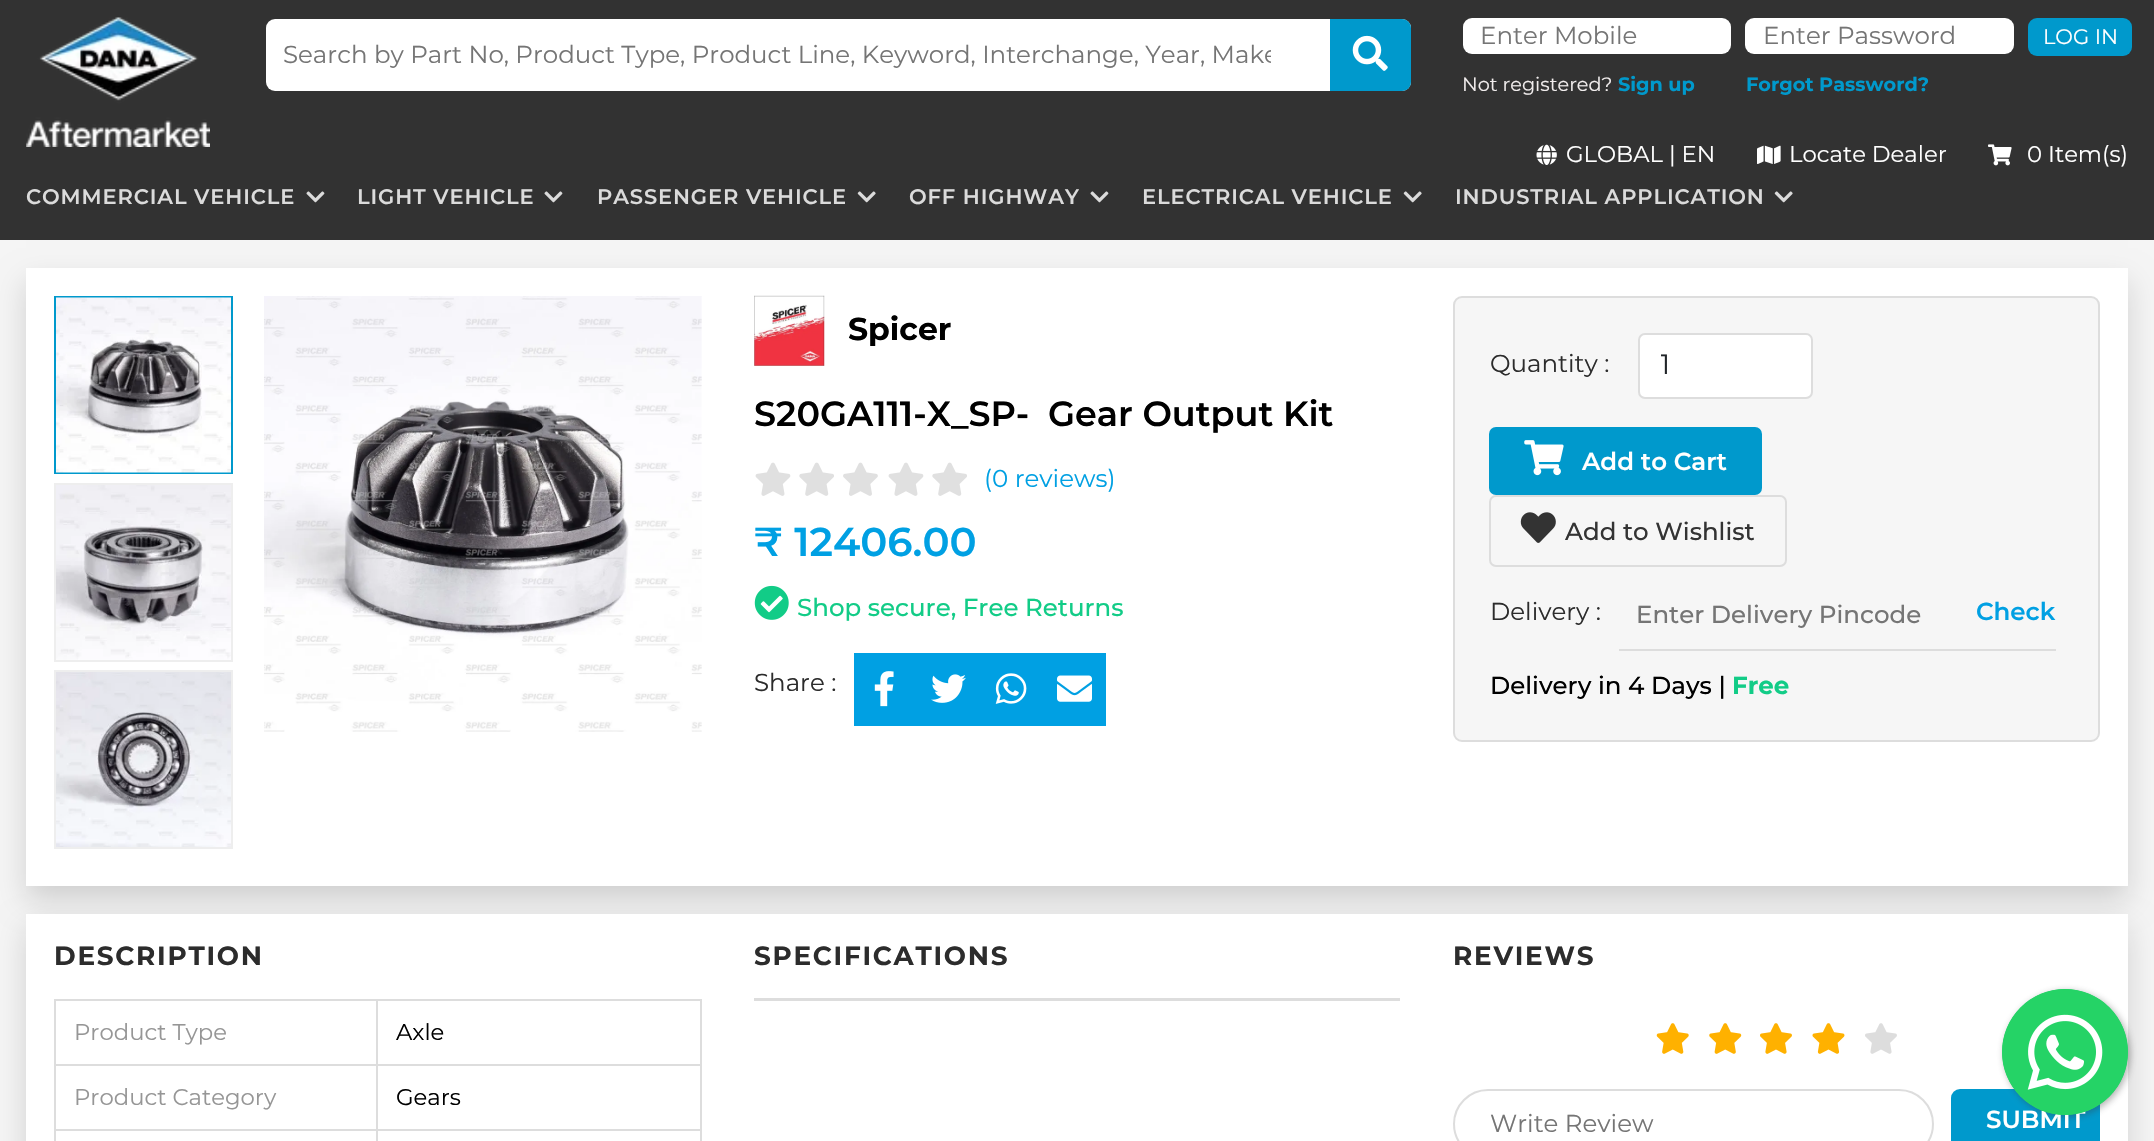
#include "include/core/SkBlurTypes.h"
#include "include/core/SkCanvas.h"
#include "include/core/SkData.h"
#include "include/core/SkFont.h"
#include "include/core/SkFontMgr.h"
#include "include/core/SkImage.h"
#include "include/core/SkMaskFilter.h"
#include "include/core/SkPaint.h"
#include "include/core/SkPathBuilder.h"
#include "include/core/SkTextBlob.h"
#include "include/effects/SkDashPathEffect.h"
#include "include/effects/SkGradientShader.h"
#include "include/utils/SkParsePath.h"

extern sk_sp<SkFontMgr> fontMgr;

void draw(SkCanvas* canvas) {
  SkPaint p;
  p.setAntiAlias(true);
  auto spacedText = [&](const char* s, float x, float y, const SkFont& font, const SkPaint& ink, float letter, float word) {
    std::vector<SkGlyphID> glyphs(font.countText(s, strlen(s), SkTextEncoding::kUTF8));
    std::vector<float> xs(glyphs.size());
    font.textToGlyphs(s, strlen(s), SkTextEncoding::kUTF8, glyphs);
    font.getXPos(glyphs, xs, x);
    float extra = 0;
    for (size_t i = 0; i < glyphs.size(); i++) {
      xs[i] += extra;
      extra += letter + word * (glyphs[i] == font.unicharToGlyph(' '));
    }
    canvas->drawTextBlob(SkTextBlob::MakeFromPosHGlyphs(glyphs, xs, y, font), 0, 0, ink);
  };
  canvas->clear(SkColorSetRGB(50, 50, 50));
  canvas->drawImageRect(SkImages::DeferredFromEncodedData(SkData::MakeFromFileName("images/1.png")), SkRect::MakeLTRB(26, 17, 210, 147), SkSamplingOptions());
  p.setColor(SK_ColorWHITE);
  canvas->drawRoundRect(SkRect::MakeLTRB(266, 19, 1411, 91), 9, 9, p);
  p.setColor(SkColorSetRGB(0, 153, 204));
  canvas->drawPath(SkPathBuilder().moveTo(1330, 19).lineTo(1402, 19).cubicTo(1407, 19, 1411, 23, 1411, 28).lineTo(1411, 82).cubicTo(1411, 87, 1407, 91, 1402, 91).lineTo(1330, 91).close().detach(), p);
  canvas->drawImageRect(SkImages::DeferredFromEncodedData(SkData::MakeFromFileName("images/2.png")), SkRect::MakeLTRB(1352, 35, 1388, 71), SkSamplingOptions());
  p.setColor(SK_ColorWHITE);
  canvas->drawRoundRect(SkRect::MakeLTRB(1463, 18, 1731, 54), 9, 9, p);
  canvas->drawRoundRect(SkRect::MakeLTRB(1745, 18, 2014, 54), 9, 9, p);
  p.setColor(SkColorSetRGB(0, 153, 204));
  canvas->drawRoundRect(SkRect::MakeLTRB(2028, 18, 2132, 56), 9, 9, p);
  canvas->drawImageRect(SkImages::DeferredFromEncodedData(SkData::MakeFromFileName("images/3.png")), SkRect::MakeLTRB(1536, 144, 1557, 165), SkSamplingOptions());
  canvas->drawImageRect(SkImages::DeferredFromEncodedData(SkData::MakeFromFileName("images/4.png")), SkRect::MakeLTRB(1757, 145, 1781, 164), SkSamplingOptions());
  canvas->drawImageRect(SkImages::DeferredFromEncodedData(SkData::MakeFromFileName("images/5.png")), SkRect::MakeLTRB(1988, 144, 2012, 166), SkSamplingOptions());
  canvas->drawImageRect(SkImages::DeferredFromEncodedData(SkData::MakeFromFileName("images/6.png")), SkRect::MakeLTRB(306, 191, 325, 203), SkSamplingOptions());
  canvas->drawImageRect(SkImages::DeferredFromEncodedData(SkData::MakeFromFileName("images/6.png")), SkRect::MakeLTRB(544, 191, 563, 203), SkSamplingOptions());
  canvas->drawImageRect(SkImages::DeferredFromEncodedData(SkData::MakeFromFileName("images/7.png")), SkRect::MakeLTRB(857, 191, 876, 203), SkSamplingOptions());
  canvas->drawImageRect(SkImages::DeferredFromEncodedData(SkData::MakeFromFileName("images/6.png")), SkRect::MakeLTRB(1090, 191, 1109, 203), SkSamplingOptions());
  canvas->drawImageRect(SkImages::DeferredFromEncodedData(SkData::MakeFromFileName("images/7.png")), SkRect::MakeLTRB(1403, 191, 1422, 203), SkSamplingOptions());
  canvas->drawImageRect(SkImages::DeferredFromEncodedData(SkData::MakeFromFileName("images/7.png")), SkRect::MakeLTRB(1774, 191, 1793, 203), SkSamplingOptions());
  p.setColor(SkColorSetRGB(245, 245, 245));
  canvas->drawRect(SkRect::MakeLTRB(0, 240, 2154, 1141), p);
  p.setColor(SkColorSetARGB(38, 0, 0, 0));
  p.setMaskFilter(SkMaskFilter::MakeBlur(kNormal_SkBlurStyle, 14));
  canvas->drawRect(SkRect::MakeLTRB(26, 282, 2128, 900), p);
  p.setMaskFilter(nullptr);
  p.setColor(SK_ColorWHITE);
  canvas->drawRect(SkRect::MakeLTRB(26, 268, 2128, 886), p);
  p.setStyle(SkPaint::kStroke_Style);
  p.setStrokeWidth(2);
  p.setColor(SkColorSetRGB(0, 153, 204));
  canvas->drawRect(SkRect::MakeLTRB(55, 297, 232, 473), p);
  canvas->drawImageRect(SkImages::DeferredFromEncodedData(SkData::MakeFromFileName("images/8.png")), SkRect::MakeLTRB(56, 297, 231, 473), SkSamplingOptions());
  p.setColor(SkColorSetRGB(238, 238, 238));
  canvas->drawRect(SkRect::MakeLTRB(55, 484, 232, 661), p);
  canvas->drawImageRect(SkImages::DeferredFromEncodedData(SkData::MakeFromFileName("images/9.png")), SkRect::MakeLTRB(56, 485, 231, 660), SkSamplingOptions());
  canvas->drawRect(SkRect::MakeLTRB(55, 671, 232, 848), p);
  canvas->drawImageRect(SkImages::DeferredFromEncodedData(SkData::MakeFromFileName("images/10.png")), SkRect::MakeLTRB(56, 672, 231, 847), SkSamplingOptions());
  canvas->drawImageRect(SkImages::DeferredFromEncodedData(SkData::MakeFromFileName("images/11.png")), SkRect::MakeLTRB(264, 296, 702, 732), SkSamplingOptions());
  canvas->drawImageRect(SkImages::DeferredFromEncodedData(SkData::MakeFromFileName("images/12.png")), SkRect::MakeLTRB(754, 295, 825, 366), SkSamplingOptions());
  canvas->drawImageRect(SkImages::DeferredFromEncodedData(SkData::MakeFromFileName("images/13.png")), SkRect::MakeLTRB(755, 462, 791, 496), SkSamplingOptions());
  canvas->drawImageRect(SkImages::DeferredFromEncodedData(SkData::MakeFromFileName("images/14.png")), SkRect::MakeLTRB(799, 462, 834, 496), SkSamplingOptions());
  canvas->drawImageRect(SkImages::DeferredFromEncodedData(SkData::MakeFromFileName("images/15.png")), SkRect::MakeLTRB(843, 462, 878, 496), SkSamplingOptions());
  canvas->drawImageRect(SkImages::DeferredFromEncodedData(SkData::MakeFromFileName("images/13.png")), SkRect::MakeLTRB(888, 462, 924, 496), SkSamplingOptions());
  canvas->drawImageRect(SkImages::DeferredFromEncodedData(SkData::MakeFromFileName("images/14.png")), SkRect::MakeLTRB(932, 462, 967, 496), SkSamplingOptions());
  canvas->drawImageRect(SkImages::DeferredFromEncodedData(SkData::MakeFromFileName("images/16.png")), SkRect::MakeLTRB(754, 585, 789, 620), SkSamplingOptions());
  p.setStyle(SkPaint::kFill_Style);
  p.setColor(SkColorSetRGB(0, 160, 227));
  canvas->drawRect(SkRect::MakeLTRB(854, 653, 1106, 726), p);
  canvas->drawImageRect(SkImages::DeferredFromEncodedData(SkData::MakeFromFileName("images/17.png")), SkRect::MakeLTRB(874, 671, 894, 707), SkSamplingOptions());
  canvas->drawImageRect(SkImages::DeferredFromEncodedData(SkData::MakeFromFileName("images/18.png")), SkRect::MakeLTRB(931, 674, 966, 703), SkSamplingOptions());
  canvas->drawImageRect(SkImages::DeferredFromEncodedData(SkData::MakeFromFileName("images/19.png")), SkRect::MakeLTRB(995, 673, 1027, 704), SkSamplingOptions());
  canvas->drawImageRect(SkImages::DeferredFromEncodedData(SkData::MakeFromFileName("images/20.png")), SkRect::MakeLTRB(1057, 675, 1092, 702), SkSamplingOptions());
  p.setColor(SkColorSetRGB(246, 246, 246));
  canvas->drawRoundRect(SkRect::MakeLTRB(1454, 297, 2099, 741), 8, 8, p);
  p.setStyle(SkPaint::kStroke_Style);
  p.setColor(SkColorSetRGB(221, 221, 221));
  canvas->drawRoundRect(SkRect::MakeLTRB(1454, 297, 2099, 741), 8, 8, p);
  p.setStyle(SkPaint::kFill_Style);
  p.setColor(SK_ColorWHITE);
  canvas->drawRoundRect(SkRect::MakeLTRB(1639, 334, 1812, 398), 6, 6, p);
  p.setStyle(SkPaint::kStroke_Style);
  p.setColor(SkColorSetRGB(221, 221, 221));
  canvas->drawRoundRect(SkRect::MakeLTRB(1639, 334, 1812, 398), 6, 6, p);
  p.setStyle(SkPaint::kFill_Style);
  p.setColor(SkColorSetRGB(0, 153, 204));
  canvas->drawRoundRect(SkRect::MakeLTRB(1489, 427, 1762, 495), 7, 7, p);
  canvas->drawImageRect(SkImages::DeferredFromEncodedData(SkData::MakeFromFileName("images/21.png")), SkRect::MakeLTRB(1524, 440, 1564, 476), SkSamplingOptions());
  p.setStyle(SkPaint::kStroke_Style);
  p.setColor(SkColorSetRGB(221, 221, 221));
  canvas->drawRoundRect(SkRect::MakeLTRB(1490, 496, 1786, 566), 6, 6, p);
  canvas->drawImageRect(SkImages::DeferredFromEncodedData(SkData::MakeFromFileName("images/22.png")), SkRect::MakeLTRB(1520, 512, 1556, 543), SkSamplingOptions());
  p.setStyle(SkPaint::kFill_Style);
  canvas->drawRect(SkRect::MakeLTRB(1619, 649, 2056, 651), p);
  p.setColor(SkColorSetARGB(38, 0, 0, 0));
  p.setMaskFilter(SkMaskFilter::MakeBlur(kNormal_SkBlurStyle, 14));
  canvas->drawRect(SkRect::MakeLTRB(26, 928, 2128, 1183), p);
  p.setMaskFilter(nullptr);
  p.setColor(SK_ColorWHITE);
  canvas->drawRect(SkRect::MakeLTRB(26, 914, 2128, 1141), p);
  p.setColor(SkColorSetRGB(221, 221, 221));
  canvas->drawRect(SkRect::MakeLTRB(54, 999, 702, 1001), p);
  canvas->drawRect(SkRect::MakeLTRB(700, 999, 702, 1141), p);
  canvas->drawRect(SkRect::MakeLTRB(54, 999, 56, 1141), p);
  canvas->drawRect(SkRect::MakeLTRB(54, 1064, 702, 1066), p);
  canvas->drawRect(SkRect::MakeLTRB(54, 1129, 702, 1131), p);
  canvas->drawRect(SkRect::MakeLTRB(376, 999, 378, 1141), p);
  canvas->drawRect(SkRect::MakeLTRB(754, 998, 1400, 1001), p);
  canvas->drawImageRect(SkImages::DeferredFromEncodedData(SkData::MakeFromFileName("images/23.png")), SkRect::MakeLTRB(1656, 1023, 1689, 1054), SkSamplingOptions());
  canvas->drawImageRect(SkImages::DeferredFromEncodedData(SkData::MakeFromFileName("images/24.png")), SkRect::MakeLTRB(1709, 1023, 1742, 1054), SkSamplingOptions());
  canvas->drawImageRect(SkImages::DeferredFromEncodedData(SkData::MakeFromFileName("images/25.png")), SkRect::MakeLTRB(1760, 1023, 1792, 1054), SkSamplingOptions());
  canvas->drawImageRect(SkImages::DeferredFromEncodedData(SkData::MakeFromFileName("images/26.png")), SkRect::MakeLTRB(1812, 1023, 1845, 1054), SkSamplingOptions());
  canvas->drawImageRect(SkImages::DeferredFromEncodedData(SkData::MakeFromFileName("images/27.png")), SkRect::MakeLTRB(1865, 1023, 1897, 1054), SkSamplingOptions());
  p.setStyle(SkPaint::kStroke_Style);
  canvas->drawRoundRect(SkRect::MakeLTRB(1454, 1090, 1933, 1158), 34, 34, p);
  p.setStyle(SkPaint::kFill_Style);
  p.setColor(SkColorSetRGB(0, 153, 204));
  canvas->drawRoundRect(SkRect::MakeLTRB(1951, 1089, 2100, 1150), 9, 9, p);
  p.setColor(SkColorSetARGB(102, 60, 60, 60));
  p.setMaskFilter(SkMaskFilter::MakeBlur(kNormal_SkBlurStyle, 3.5f));
  canvas->drawRoundRect(SkRect::MakeLTRB(2004, 991, 2130, 1117), 63, 63, p);
  p.setMaskFilter(nullptr);
  canvas->save();
  canvas->clipRect(SkRect::MakeLTRB(284, 39, 1271, 70));
  SkFont font1(fontMgr->matchFamilyStyle("Montserrat", SkFontStyle::Normal()), 24.5f);
  font1.setSubpixel(true);
  p.setColor(SkColorSetRGB(117, 117, 117));
  canvas->drawString("Search by Part No, Product Type, Product Line, Keyword, Interchange, Year, Make", 283, 63, font1, p);
  canvas->restore();
  canvas->drawString("Enter Mobile", 1480, 44, font1, p);
  canvas->drawString("Enter Password", 1763, 44, font1, p);
  SkFont font2(fontMgr->matchFamilyStyle("Montserrat", SkFontStyle::Normal()), 21);
  font2.setSubpixel(true);
  p.setColor(SK_ColorWHITE);
  canvas->drawString("LOG IN", 2043, 44, font2, p);
  SkFont font3(fontMgr->matchFamilyStyle("Montserrat", SkFontStyle::Normal()), 19.25f);
  font3.setSubpixel(true);
  p.setColor(SkColorSetRGB(241, 237, 237));
  canvas->drawString("Not registered?", 1462, 91, font3, p);
  SkFont font4(fontMgr->matchFamilyStyle("Montserrat", SkFontStyle::Bold()), 19.25f);
  font4.setSubpixel(true);
  p.setColor(SkColorSetRGB(0, 153, 204));
  canvas->drawString("Sign up", 1618, 91, font4, p);
  canvas->drawString("Forgot Password?", 1746, 91, font4, p);
  SkFont font5(fontMgr->matchFamilyStyle("Montserrat", SkFontStyle::Normal()), 22.75f);
  font5.setSubpixel(true);
  p.setColor(SK_ColorWHITE);
  canvas->drawString("GLOBAL | EN", 1566, 162, font5, p);
  canvas->drawString("Locate Dealer", 1789, 162, font5, p);
  canvas->drawString("0 Item(s)", 2027, 162, font5, p);
  SkFont font6(fontMgr->matchFamilyStyle("Montserrat", SkFontStyle(600, SkFontStyle::kNormal_Width, SkFontStyle::kUpright_Slant)), 21);
  font6.setSubpixel(true);
  p.setColor(SkColorSetRGB(219, 219, 219));
  spacedText("COMMERCIAL VEHICLE", 26, 204, font6, p, 0.9f, 0);
  spacedText("LIGHT VEHICLE", 357, 204, font6, p, 0.9f, 0);
  spacedText("PASSENGER VEHICLE", 597, 204, font6, p, 0.9f, 0);
  spacedText("OFF HIGHWAY", 909, 204, font6, p, 0.9f, 0);
  spacedText("ELECTRICAL VEHICLE", 1142, 204, font6, p, 0.9f, 0);
  spacedText("INDUSTRIAL APPLICATION", 1455, 204, font6, p, 0.9f, 0);
  SkFont font7(fontMgr->matchFamilyStyle("Montserrat", SkFontStyle::Bold()), 31.5f);
  font7.setSubpixel(true);
  p.setColor(SK_ColorBLACK);
  canvas->drawString("Spicer", 848, 340, font7, p);
  SkFont font8(fontMgr->matchFamilyStyle("Montserrat", SkFontStyle(600, SkFontStyle::kNormal_Width, SkFontStyle::kUpright_Slant)), 35);
  font8.setSubpixel(true);
  canvas->drawString("S20GA111-X_SP-", 754, 426, font8, p);
  canvas->drawString("Gear Output Kit", 1048, 426, font8, p);
  p.setColor(SkColorSetRGB(0, 160, 227));
  canvas->drawString("(0 reviews)", 984, 487, font1, p);
  SkFont font9(fontMgr->matchFamilyStyle("Montserrat", SkFontStyle(600, SkFontStyle::kNormal_Width, SkFontStyle::kUpright_Slant)), 40.25f);
  font9.setSubpixel(true);
  canvas->drawString("₹ 12406.00", 754, 556, font9, p);
  SkFont font10(fontMgr->matchFamilyStyle("Montserrat", SkFontStyle(500, SkFontStyle::kNormal_Width, SkFontStyle::kUpright_Slant)), 24.5f);
  font10.setSubpixel(true);
  p.setColor(SkColorSetRGB(18, 204, 135));
  canvas->drawString("Shop secure, Free Returns", 797, 616, font10, p);
  p.setColor(SkColorSetRGB(44, 44, 44));
  canvas->drawString("Share :", 754, 691, font1, p);
  canvas->drawString("Quantity :", 1490, 372, font1, p);
  canvas->save();
  canvas->clipRect(SkRect::MakeLTRB(1661, 345, 1790, 387));
  SkFont font11(fontMgr->matchFamilyStyle("Montserrat", SkFontStyle::Normal()), 28);
  font11.setSubpixel(true);
  p.setColor(SkColorSetRGB(33, 37, 41));
  canvas->drawString("1", 1660, 374, font11, p);
  canvas->restore();
  SkFont font12(fontMgr->matchFamilyStyle("Montserrat", SkFontStyle(600, SkFontStyle::kNormal_Width, SkFontStyle::kUpright_Slant)), 24.5f);
  font12.setSubpixel(true);
  p.setColor(SK_ColorWHITE);
  canvas->drawString("Add to Cart", 1582, 470, font12, p);
  p.setColor(SkColorSetRGB(51, 51, 51));
  canvas->drawString("Add to Wishlist", 1565, 540, font10, p);
  p.setColor(SkColorSetRGB(44, 44, 44));
  canvas->drawString("Delivery :", 1490, 620, font1, p);
  p.setColor(SkColorSetRGB(117, 117, 117));
  canvas->drawString("Enter Delivery Pincode", 1636, 623, font10, p);
  p.setColor(SkColorSetRGB(0, 160, 227));
  canvas->drawString("Check", 1976, 620, font12, p);
  p.setColor(SK_ColorBLACK);
  canvas->drawString("Delivery in 4 Days |", 1490, 694, font10, p);
  SkFont font13(fontMgr->matchFamilyStyle("Montserrat", SkFontStyle::Bold()), 24.5f);
  font13.setSubpixel(true);
  p.setColor(SkColorSetRGB(18, 204, 135));
  canvas->drawString("Free", 1732, 694, font13, p);
  SkFont font14(fontMgr->matchFamilyStyle("Montserrat", SkFontStyle::Bold()), 26.25f);
  font14.setSubpixel(true);
  p.setColor(SkColorSetRGB(44, 44, 44));
  spacedText("DESCRIPTION", 54, 965, font14, p, 1.75f, 0);
  p.setColor(SkColorSetRGB(150, 150, 150));
  canvas->drawString("Product Type", 74, 1040, font5, p);
  p.setColor(SK_ColorBLACK);
  canvas->drawString("Axle", 396, 1040, font5, p);
  p.setColor(SkColorSetRGB(150, 150, 150));
  canvas->drawString("Product Category", 74, 1105, font5, p);
  p.setColor(SK_ColorBLACK);
  canvas->drawString("Gears", 396, 1105, font5, p);
  p.setColor(SkColorSetRGB(44, 44, 44));
  spacedText("SPECIFICATIONS", 754, 965, font14, p, 1.75f, 0);
  spacedText("REVIEWS", 1453, 965, font14, p, 1.75f, 0);
  p.setColor(SkColorSetRGB(117, 117, 117));
  canvas->drawString("Write Review", 1490, 1132, font1, p);
  p.setColor(SK_ColorWHITE);
  canvas->drawString("SUBMIT", 1986, 1128, font12, p);
  p.setColor(SkColorSetRGB(37, 211, 102));
  canvas->drawCircle(2065, 1052, 63, p);
  canvas->drawImageRect(SkImages::DeferredFromEncodedData(SkData::MakeFromFileName("images/28.png")), SkRect::MakeLTRB(2002, 989, 2128, 1115), SkSamplingOptions());
}
